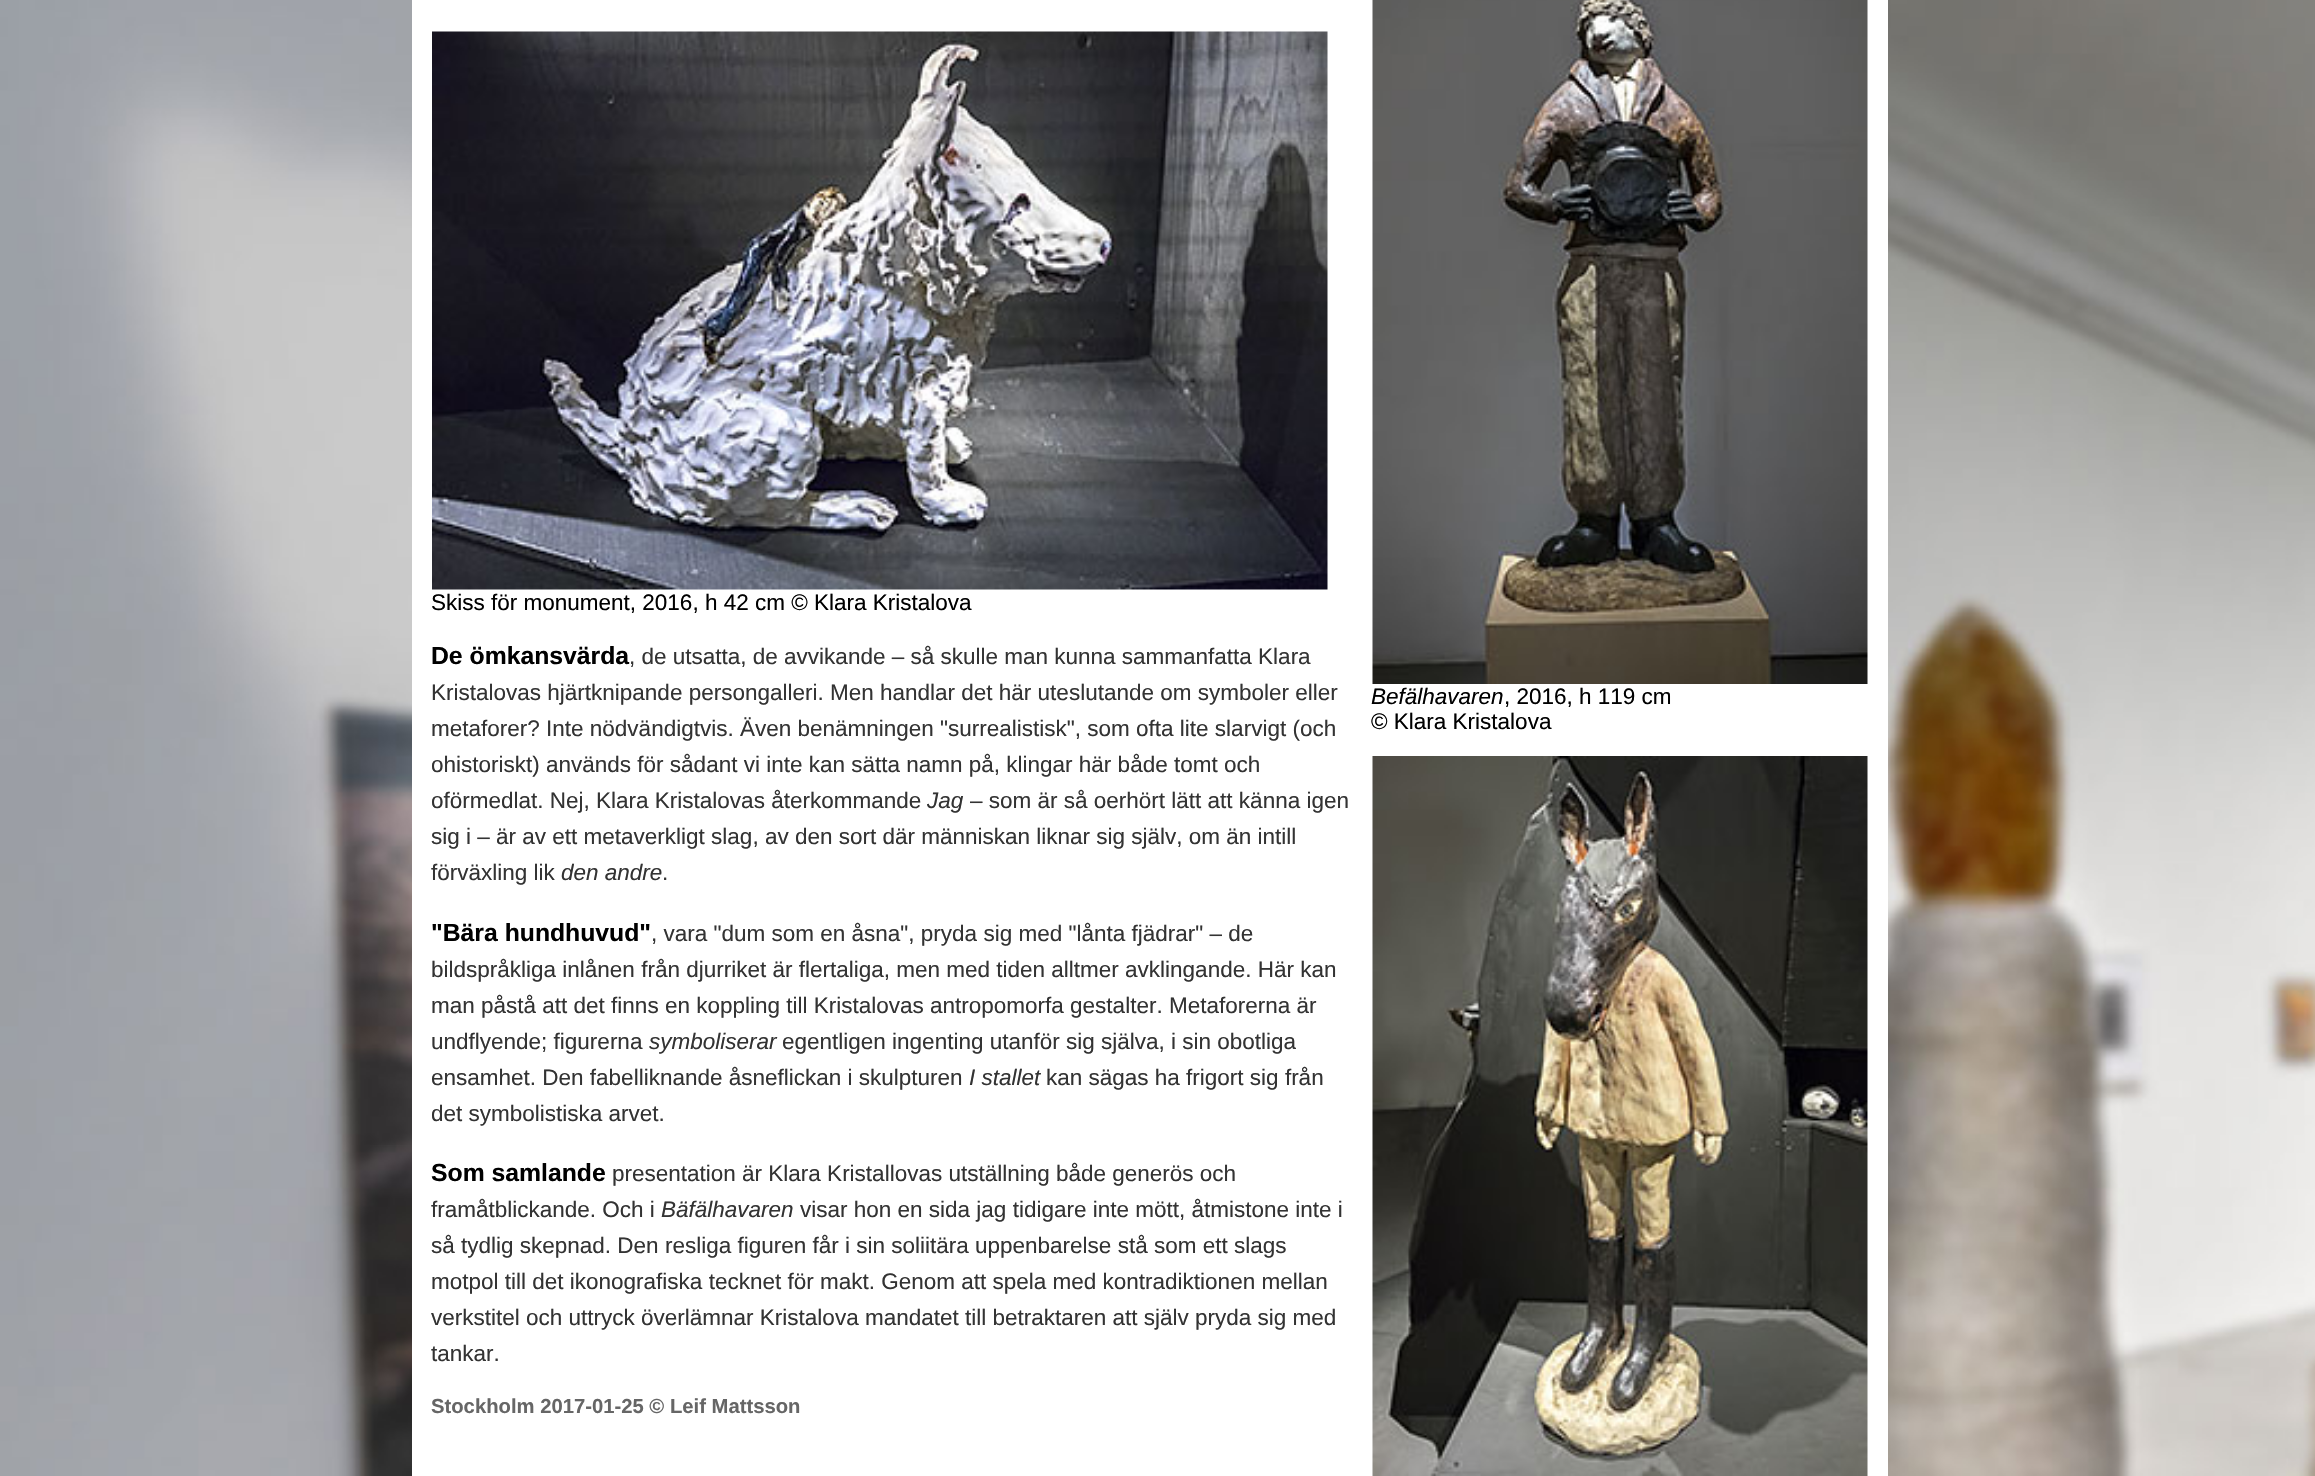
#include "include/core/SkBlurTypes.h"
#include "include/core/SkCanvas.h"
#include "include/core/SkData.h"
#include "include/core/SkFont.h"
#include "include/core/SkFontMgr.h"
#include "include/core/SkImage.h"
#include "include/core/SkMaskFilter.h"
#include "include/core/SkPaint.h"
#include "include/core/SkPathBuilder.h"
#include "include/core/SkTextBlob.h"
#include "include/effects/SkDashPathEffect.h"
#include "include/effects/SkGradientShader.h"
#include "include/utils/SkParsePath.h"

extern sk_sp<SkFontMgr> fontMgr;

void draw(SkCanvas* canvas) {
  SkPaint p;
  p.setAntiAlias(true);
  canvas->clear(SK_ColorWHITE);
  canvas->drawImageRect(SkImages::DeferredFromEncodedData(SkData::MakeFromFileName("images/1.png")), SkRect::MakeLTRB(0, 0, 2315, 1476), SkSamplingOptions());
  p.setColor(SK_ColorWHITE);
  canvas->drawRect(SkRect::MakeLTRB(412, 0, 1888, 1476), p);
  canvas->drawImageRect(SkImages::DeferredFromEncodedData(SkData::MakeFromFileName("images/2.png")), SkRect::MakeLTRB(432, 31, 1328, 590), SkSamplingOptions());
  canvas->drawImageRect(SkImages::DeferredFromEncodedData(SkData::MakeFromFileName("images/3.png")), SkRect::MakeLTRB(1372, 0, 1868, 684), SkSamplingOptions());
  canvas->drawImageRect(SkImages::DeferredFromEncodedData(SkData::MakeFromFileName("images/4.png")), SkRect::MakeLTRB(1372, 756, 1868, 1476), SkSamplingOptions());
  SkFont font1(fontMgr->matchFamilyStyle("Liberation Sans", SkFontStyle::Normal()), 22.5f);
  font1.setSubpixel(true);
  p.setColor(SK_ColorBLACK);
  canvas->drawString("Skiss för monument, 2016, h 42 cm © Klara Kristalova", 431, 610, font1, p);
  SkFont font2(fontMgr->matchFamilyStyle("Liberation Sans", SkFontStyle::Bold()), 24.75f);
  font2.setSubpixel(true);
  canvas->drawString("De ömkansvärda", 431, 664, font2, p);
  p.setColor(SkColorSetRGB(51, 51, 51));
  canvas->drawString(", de utsatta, de avvikande – så skulle man kunna sammanfatta Klara", 629, 664, font1, p);
  canvas->drawString("Kristalovas hjärtknipande persongalleri. Men handlar det här uteslutande om symboler eller", 431, 700, font1, p);
  canvas->drawString("metaforer? Inte nödvändigtvis. Även benämningen \"surrealistisk\", som ofta lite slarvigt (och", 431, 736, font1, p);
  canvas->drawString("ohistoriskt) används för sådant vi inte kan sätta namn på, klingar här både tomt och", 431, 772, font1, p);
  canvas->drawString("oförmedlat. Nej, Klara Kristalovas återkommande", 431, 808, font1, p);
  SkFont font3(fontMgr->matchFamilyStyle("Liberation Sans", SkFontStyle::Italic()), 22.5f);
  font3.setSubpixel(true);
  canvas->drawString("Jag", 927, 808, font3, p);
  canvas->drawString("– som är så oerhört lätt att känna igen", 970, 808, font1, p);
  canvas->drawString("sig i – är av ett metaverkligt slag, av den sort där människan liknar sig själv, om än intill", 431, 844, font1, p);
  canvas->drawString("förväxling lik", 431, 880, font1, p);
  canvas->drawString("den andre", 561, 880, font3, p);
  canvas->drawString(".", 662, 880, font1, p);
  p.setColor(SK_ColorBLACK);
  canvas->drawString("\"Bära hundhuvud\"", 431, 941, font2, p);
  p.setColor(SkColorSetRGB(51, 51, 51));
  canvas->drawString(", vara \"dum som en åsna\", pryda sig med \"lånta fjädrar\" – de", 651, 941, font1, p);
  canvas->drawString("bildspråkliga inlånen från djurriket är flertaliga, men med tiden alltmer avklingande. Här kan", 431, 977, font1, p);
  canvas->drawString("man påstå att det finns en koppling till Kristalovas antropomorfa gestalter. Metaforerna är", 431, 1013, font1, p);
  canvas->drawString("undflyende; figurerna", 431, 1049, font1, p);
  canvas->drawString("symboliserar", 649, 1049, font3, p);
  canvas->drawString("egentligen ingenting utanför sig själva, i sin obotliga", 782, 1049, font1, p);
  canvas->drawString("ensamhet. Den fabelliknande åsneflickan i skulpturen", 431, 1085, font1, p);
  canvas->drawString("I stallet", 969, 1085, font3, p);
  canvas->drawString("kan sägas ha frigort sig från", 1046, 1085, font1, p);
  canvas->drawString("det symbolistiska arvet.", 431, 1121, font1, p);
  p.setColor(SK_ColorBLACK);
  canvas->drawString("Som samlande", 431, 1181, font2, p);
  p.setColor(SkColorSetRGB(51, 51, 51));
  canvas->drawString("presentation är Klara Kristallovas utställning både generös och", 612, 1181, font1, p);
  canvas->drawString("framåtblickande. Och i", 431, 1217, font1, p);
  canvas->drawString("Bäfälhavaren", 661, 1217, font3, p);
  canvas->drawString("visar hon en sida jag tidigare inte mött, åtmistone inte i", 800, 1217, font1, p);
  canvas->drawString("så tydlig skepnad. Den resliga figuren får i sin soliitära uppenbarelse stå som ett slags", 431, 1253, font1, p);
  canvas->drawString("motpol till det ikonografiska tecknet för makt. Genom att spela med kontradiktionen mellan", 431, 1289, font1, p);
  canvas->drawString("verkstitel och uttryck överlämnar Kristalova mandatet till betraktaren att själv pryda sig med", 431, 1325, font1, p);
  canvas->drawString("tankar.", 431, 1361, font1, p);
  SkFont font4(fontMgr->matchFamilyStyle("Liberation Sans", SkFontStyle::Bold()), 20.25f);
  font4.setSubpixel(true);
  p.setColor(SkColorSetRGB(102, 102, 102));
  canvas->drawString("Stockholm 2017-01-25 © Leif Mattsson", 431, 1413, font4, p);
  p.setColor(SK_ColorBLACK);
  canvas->drawString("Befälhavaren", 1371, 704, font3, p);
  canvas->drawString(", 2016, h 119 cm", 1504, 704, font1, p);
  canvas->drawString("© Klara Kristalova", 1371, 729, font1, p);
}
